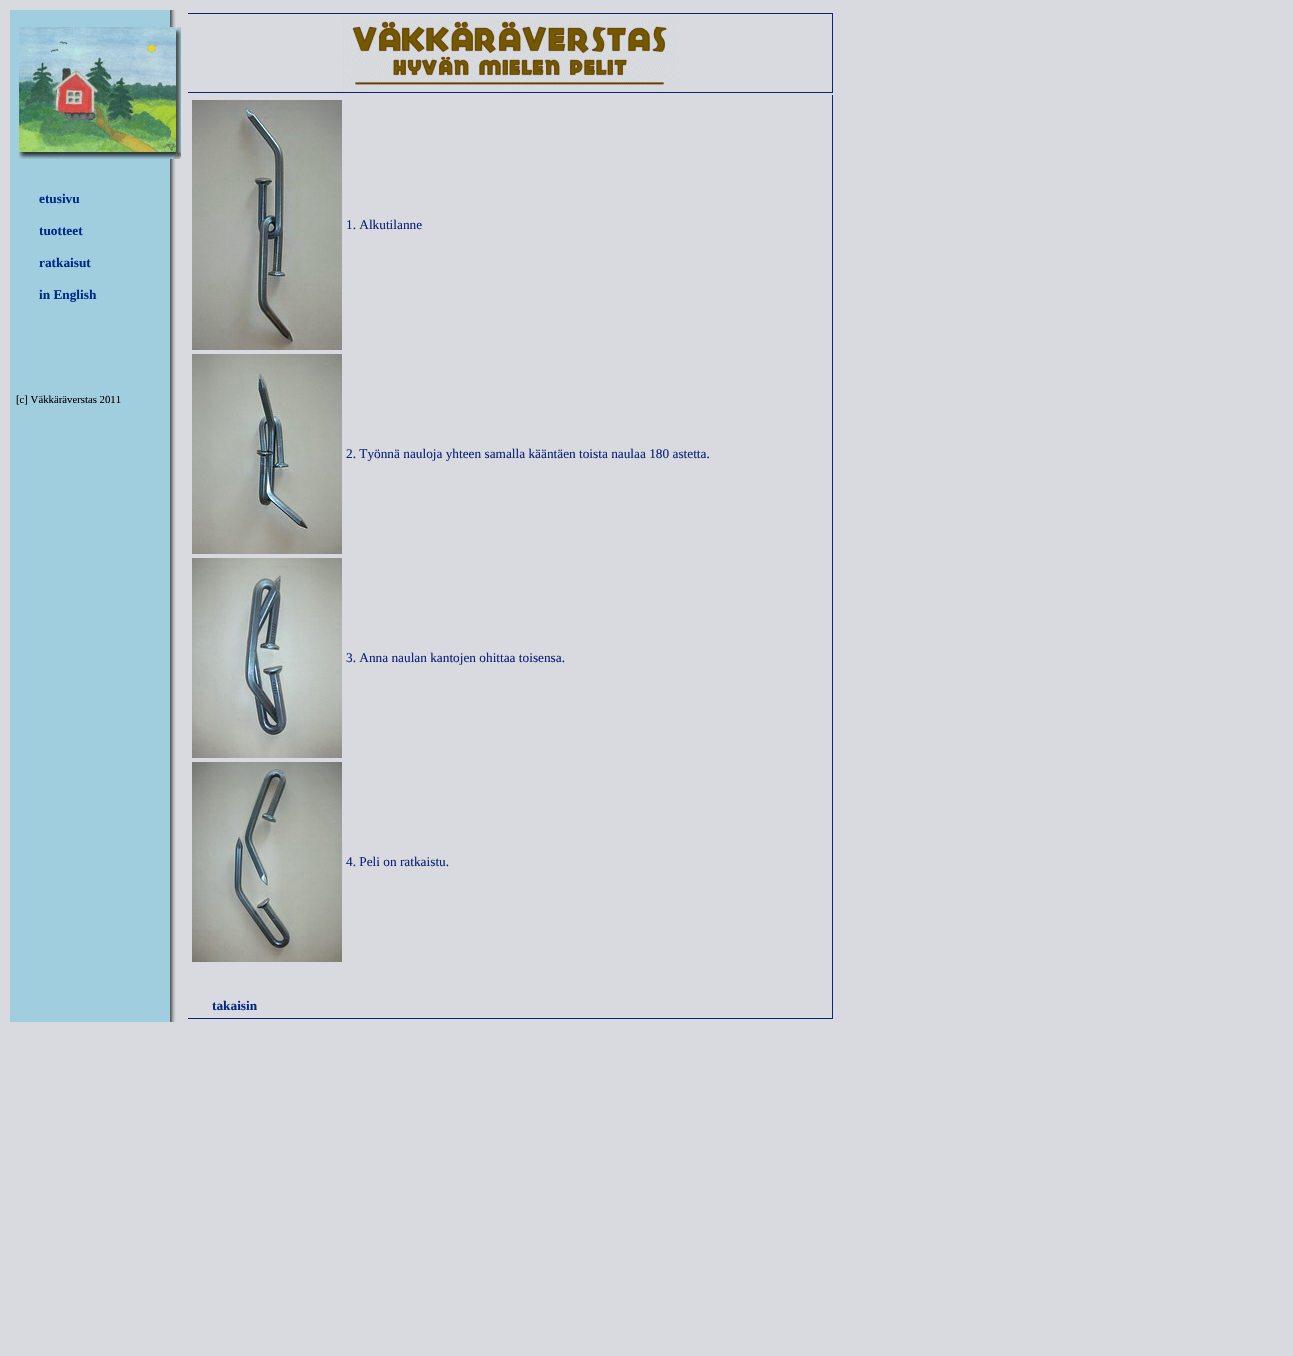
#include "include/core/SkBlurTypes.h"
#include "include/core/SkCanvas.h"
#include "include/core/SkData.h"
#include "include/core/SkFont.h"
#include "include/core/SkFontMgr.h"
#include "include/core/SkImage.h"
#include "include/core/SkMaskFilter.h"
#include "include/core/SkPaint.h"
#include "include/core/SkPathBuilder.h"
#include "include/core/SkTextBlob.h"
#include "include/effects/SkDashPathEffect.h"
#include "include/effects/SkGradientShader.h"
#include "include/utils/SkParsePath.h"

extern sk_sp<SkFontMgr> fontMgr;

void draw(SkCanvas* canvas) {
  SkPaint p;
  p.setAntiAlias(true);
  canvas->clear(SkColorSetRGB(216, 218, 223));
  canvas->drawImageRect(SkImages::DeferredFromEncodedData(SkData::MakeFromFileName("images/1.png")), SkRect::MakeLTRB(10, 10, 176, 1022), SkSamplingOptions());
  canvas->drawImageRect(SkImages::DeferredFromEncodedData(SkData::MakeFromFileName("images/2.png")), SkRect::MakeLTRB(19, 27, 181, 159), SkSamplingOptions());
  p.setColor(SkColorSetRGB(12, 35, 121));
  canvas->drawRect(SkRect::MakeLTRB(187, 13, 833, 14), p);
  canvas->drawRect(SkRect::MakeLTRB(832, 13, 833, 93), p);
  canvas->drawRect(SkRect::MakeLTRB(187, 92, 833, 93), p);
  p.setColor(SkColorSetRGB(216, 218, 223));
  canvas->drawRect(SkRect::MakeLTRB(187, 13, 188, 93), p);
  canvas->drawImageRect(SkImages::DeferredFromEncodedData(SkData::MakeFromFileName("images/3.png")), SkRect::MakeLTRB(343, 17, 678, 91), SkSamplingOptions());
  p.setColor(SkColorSetRGB(12, 35, 121));
  canvas->drawRect(SkRect::MakeLTRB(832, 95, 833, 1019), p);
  canvas->drawRect(SkRect::MakeLTRB(187, 1018, 833, 1019), p);
  p.setColor(SkColorSetRGB(216, 218, 223));
  canvas->drawRect(SkRect::MakeLTRB(187, 1018, 188, 1019), p);
  canvas->drawImageRect(SkImages::DeferredFromEncodedData(SkData::MakeFromFileName("images/4.png")), SkRect::MakeLTRB(192, 100, 342, 350), SkSamplingOptions());
  canvas->drawImageRect(SkImages::DeferredFromEncodedData(SkData::MakeFromFileName("images/5.png")), SkRect::MakeLTRB(192, 354, 342, 554), SkSamplingOptions());
  canvas->drawImageRect(SkImages::DeferredFromEncodedData(SkData::MakeFromFileName("images/6.png")), SkRect::MakeLTRB(192, 558, 342, 758), SkSamplingOptions());
  canvas->drawImageRect(SkImages::DeferredFromEncodedData(SkData::MakeFromFileName("images/7.png")), SkRect::MakeLTRB(192, 762, 342, 962), SkSamplingOptions());
  SkFont font1(fontMgr->matchFamilyStyle("Liberation Serif", SkFontStyle::Bold()), 13.3f);
  font1.setSubpixel(true);
  p.setColor(SkColorSetRGB(0, 41, 135));
  canvas->drawString("etusivu", 39, 203, font1, p);
  canvas->drawString("tuotteet", 39, 235, font1, p);
  canvas->drawString("ratkaisut", 39, 267, font1, p);
  canvas->drawString("in English", 39, 299, font1, p);
  SkFont font2(fontMgr->matchFamilyStyle("Liberation Serif", SkFontStyle::Normal()), 10.75f);
  font2.setSubpixel(true);
  p.setColor(SK_ColorBLACK);
  canvas->drawString("[c] Väkkäräverstas 2011", 16, 403, font2, p);
  SkFont font3(fontMgr->matchFamilyStyle("Liberation Serif", SkFontStyle::Normal()), 13.3f);
  font3.setSubpixel(true);
  p.setColor(SkColorSetRGB(12, 35, 121));
  canvas->drawString("1. Alkutilanne", 346, 229, font3, p);
  canvas->drawString("2. Työnnä nauloja yhteen samalla kääntäen toista naulaa 180 astetta.", 346, 458, font3, p);
  canvas->drawString("3. Anna naulan kantojen ohittaa toisensa.", 346, 662, font3, p);
  canvas->drawString("4. Peli on ratkaistu.", 346, 866, font3, p);
  p.setColor(SkColorSetRGB(0, 41, 135));
  canvas->drawString("takaisin", 212, 1010, font1, p);
}
